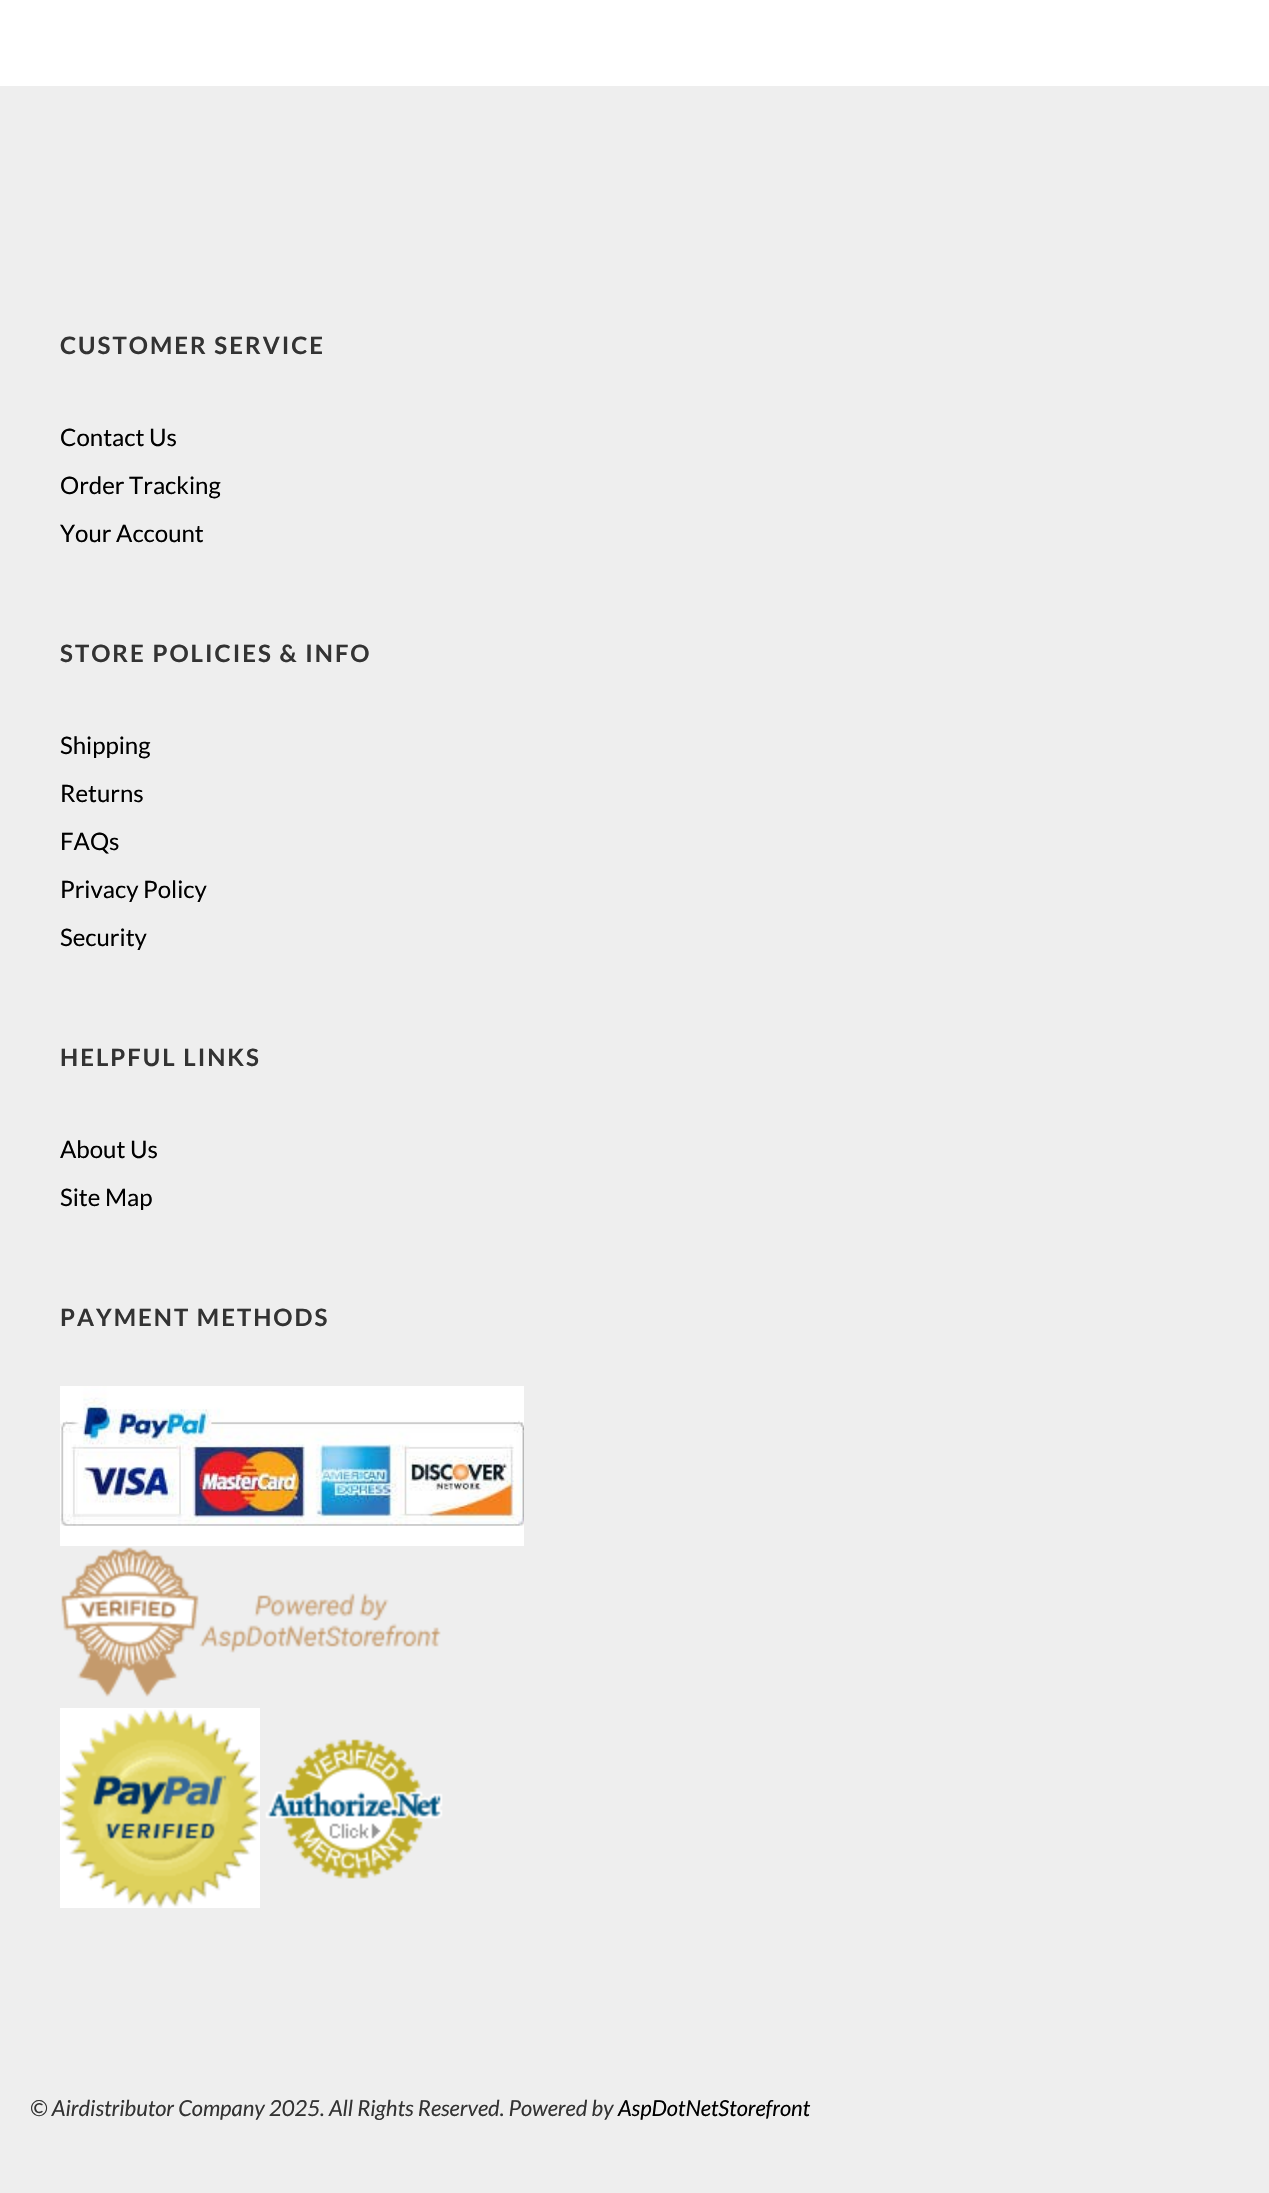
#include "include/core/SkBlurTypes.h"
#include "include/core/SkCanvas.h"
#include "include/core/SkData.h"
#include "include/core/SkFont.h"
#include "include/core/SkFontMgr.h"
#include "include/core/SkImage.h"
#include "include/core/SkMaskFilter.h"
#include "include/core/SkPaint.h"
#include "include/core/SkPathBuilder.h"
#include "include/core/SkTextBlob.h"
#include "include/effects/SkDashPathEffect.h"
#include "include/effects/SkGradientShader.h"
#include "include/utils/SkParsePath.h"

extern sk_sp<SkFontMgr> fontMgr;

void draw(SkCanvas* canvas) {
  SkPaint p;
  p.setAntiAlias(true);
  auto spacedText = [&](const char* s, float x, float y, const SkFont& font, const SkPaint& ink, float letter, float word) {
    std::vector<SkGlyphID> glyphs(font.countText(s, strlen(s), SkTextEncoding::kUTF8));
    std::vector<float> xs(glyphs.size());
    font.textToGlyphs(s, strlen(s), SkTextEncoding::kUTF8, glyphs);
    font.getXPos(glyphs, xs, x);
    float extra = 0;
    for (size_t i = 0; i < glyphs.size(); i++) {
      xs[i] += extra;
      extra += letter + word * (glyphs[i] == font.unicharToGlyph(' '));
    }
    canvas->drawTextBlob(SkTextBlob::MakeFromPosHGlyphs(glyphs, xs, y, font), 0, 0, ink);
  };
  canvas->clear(SK_ColorWHITE);
  p.setColor(SkColorSetRGB(238, 238, 238));
  canvas->drawRect(SkRect::MakeLTRB(0, 86, 1269, 2193), p);
  canvas->drawImageRect(SkImages::DeferredFromEncodedData(SkData::MakeFromFileName("images/1.png")), SkRect::MakeLTRB(60, 1386, 524, 1546), SkSamplingOptions());
  canvas->drawImageRect(SkImages::DeferredFromEncodedData(SkData::MakeFromFileName("images/2.png")), SkRect::MakeLTRB(61, 1547, 441, 1697), SkSamplingOptions());
  canvas->drawImageRect(SkImages::DeferredFromEncodedData(SkData::MakeFromFileName("images/3.png")), SkRect::MakeLTRB(60, 1708, 260, 1908), SkSamplingOptions());
  canvas->drawImageRect(SkImages::DeferredFromEncodedData(SkData::MakeFromFileName("images/4.png")), SkRect::MakeLTRB(265, 1739, 443, 1879), SkSamplingOptions());
  SkFont font1(fontMgr->matchFamilyStyle("Lato", SkFontStyle::Bold()), 24);
  font1.setSubpixel(true);
  p.setColor(SkColorSetRGB(51, 51, 51));
  spacedText("CUSTOMER SERVICE", 60, 354, font1, p, 2, 0);
  SkFont font2(fontMgr->matchFamilyStyle("Lato", SkFontStyle::Normal()), 24);
  font2.setSubpixel(true);
  p.setColor(SK_ColorBLACK);
  canvas->drawString("Contact Us", 60, 446, font2, p);
  canvas->drawString("Order Tracking", 60, 494, font2, p);
  canvas->drawString("Your Account", 60, 542, font2, p);
  p.setColor(SkColorSetRGB(51, 51, 51));
  spacedText("STORE POLICIES & INFO", 60, 662, font1, p, 2, 0);
  p.setColor(SK_ColorBLACK);
  canvas->drawString("Shipping", 60, 754, font2, p);
  canvas->drawString("Returns", 60, 802, font2, p);
  canvas->drawString("FAQs", 60, 850, font2, p);
  canvas->drawString("Privacy Policy", 60, 898, font2, p);
  canvas->drawString("Security", 60, 946, font2, p);
  p.setColor(SkColorSetRGB(51, 51, 51));
  spacedText("HELPFUL LINKS", 60, 1066, font1, p, 2, 0);
  p.setColor(SK_ColorBLACK);
  canvas->drawString("About Us", 60, 1158, font2, p);
  canvas->drawString("Site Map", 60, 1206, font2, p);
  p.setColor(SkColorSetRGB(51, 51, 51));
  spacedText("PAYMENT METHODS", 60, 1326, font1, p, 2, 0);
  SkFont font3(fontMgr->matchFamilyStyle("Lato", SkFontStyle::Italic()), 22);
  font3.setSubpixel(true);
  canvas->drawString("© Airdistributor Company 2025. All Rights Reserved. Powered by", 30, 2116, font3, p);
  p.setColor(SK_ColorBLACK);
  canvas->drawString("AspDotNetStorefront", 618, 2116, font3, p);
}
